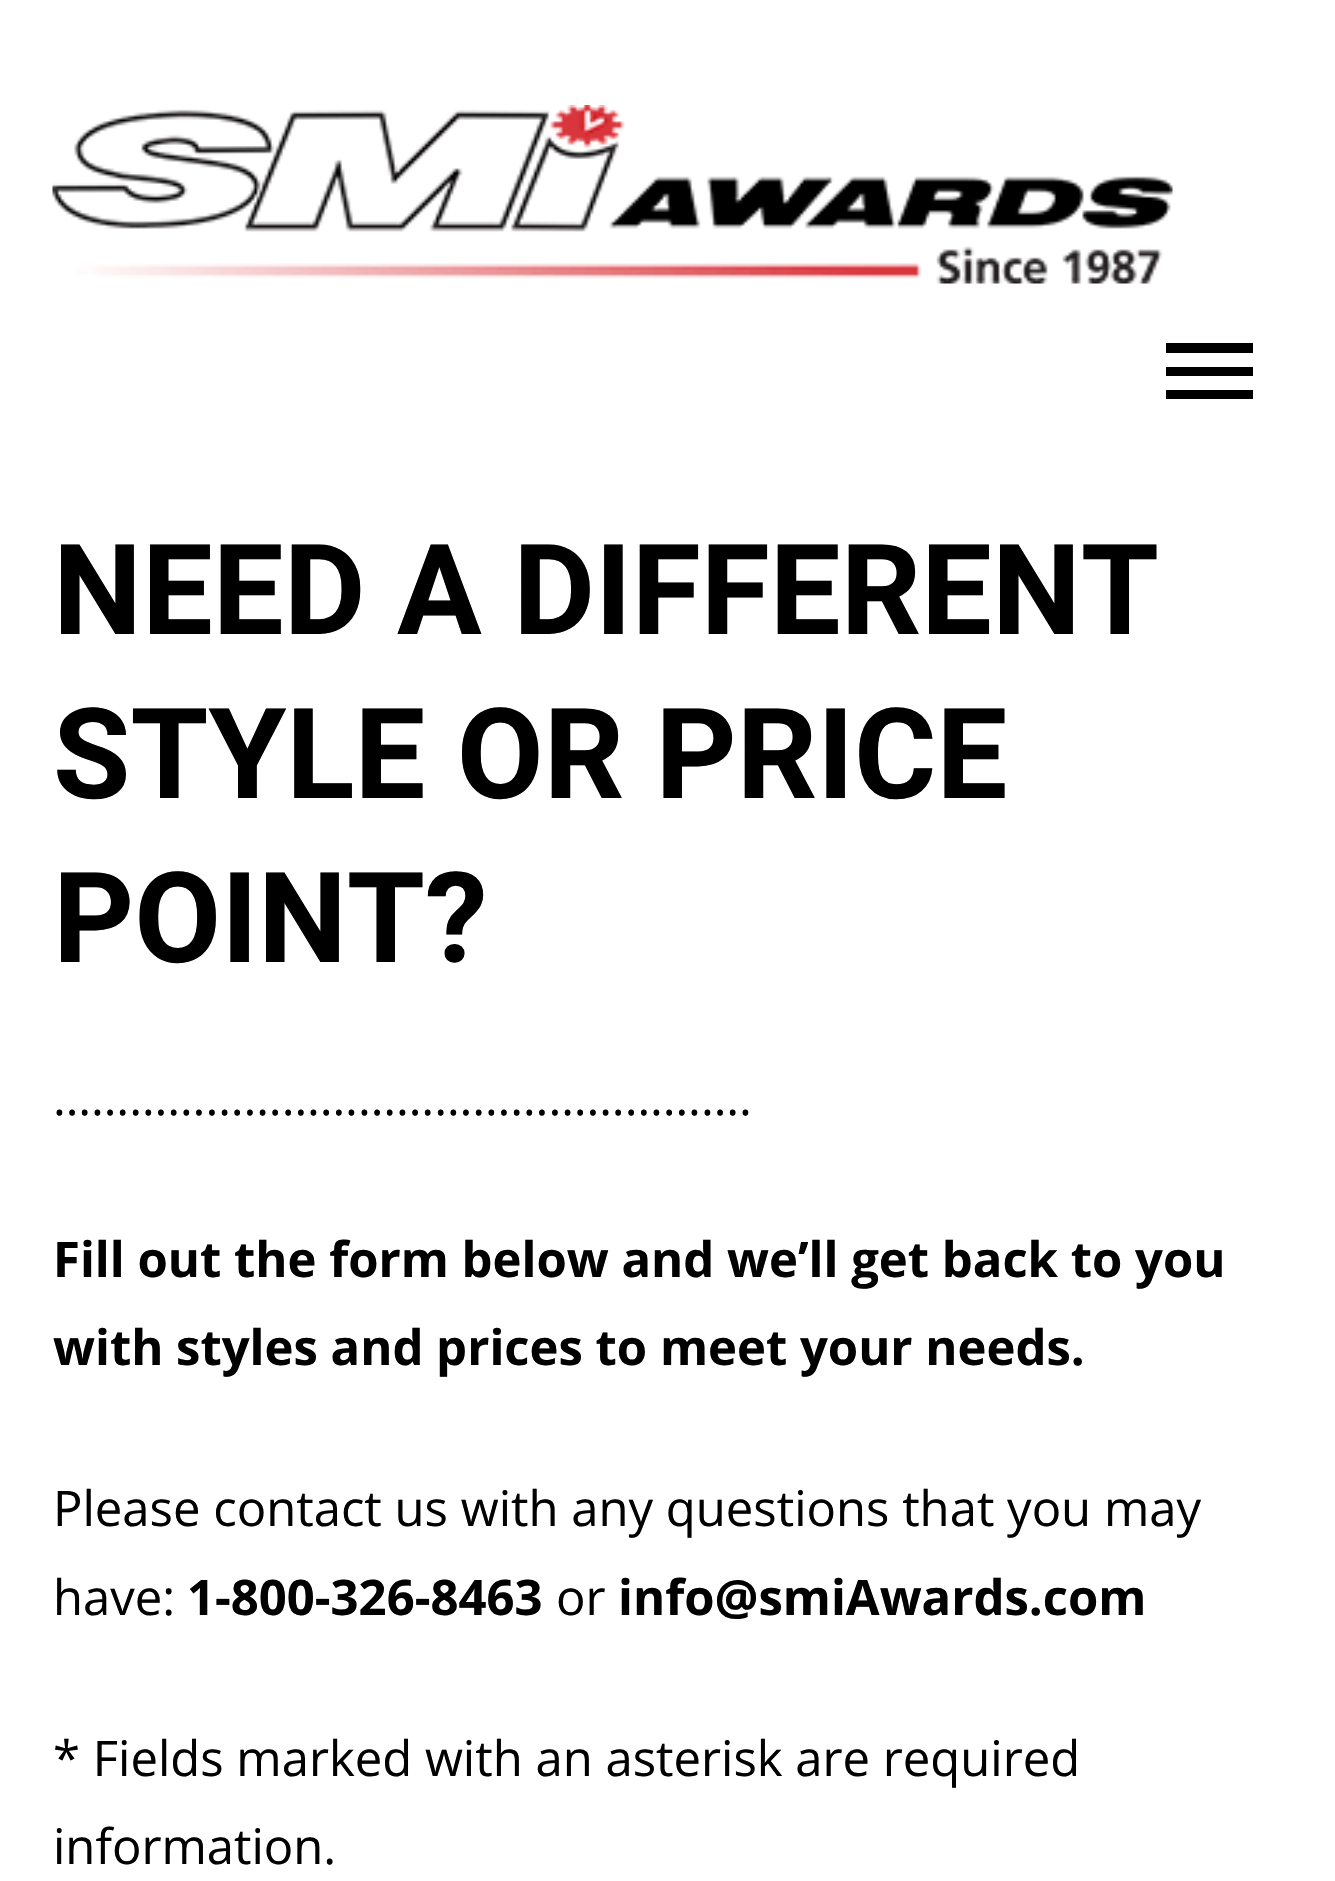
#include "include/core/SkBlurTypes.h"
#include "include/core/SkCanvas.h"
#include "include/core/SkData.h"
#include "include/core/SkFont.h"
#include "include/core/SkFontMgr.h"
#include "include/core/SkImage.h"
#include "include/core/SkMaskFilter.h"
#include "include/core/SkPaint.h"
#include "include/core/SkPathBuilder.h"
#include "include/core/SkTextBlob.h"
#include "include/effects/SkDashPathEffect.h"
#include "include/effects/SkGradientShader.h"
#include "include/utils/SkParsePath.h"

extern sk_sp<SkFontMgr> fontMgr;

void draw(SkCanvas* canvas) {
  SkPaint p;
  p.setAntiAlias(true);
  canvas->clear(SK_ColorWHITE);
  canvas->drawImageRect(SkImages::DeferredFromEncodedData(SkData::MakeFromFileName("images/1.png")), SkRect::MakeLTRB(52, 105, 1173, 284), SkSamplingOptions());
  p.setColor(SK_ColorBLACK);
  canvas->drawPath(SkPathBuilder().moveTo(1166, 399).lineTo(1253, 399).lineTo(1253, 390).lineTo(1166, 390).close().moveTo(1166, 376).lineTo(1253, 376).lineTo(1253, 367).lineTo(1166, 367).close().moveTo(1166, 343).lineTo(1166, 353).lineTo(1253, 353).lineTo(1253, 343).close().detach(), p);
  SkFont font1(fontMgr->matchFamilyStyle("Roboto", SkFontStyle::Bold()), 126);
  font1.setSubpixel(true);
  canvas->drawString("NEED A DIFFERENT", 53, 634, font1, p);
  canvas->drawString("STYLE OR PRICE", 53, 798, font1, p);
  canvas->drawString("POINT?", 53, 962, font1, p);
  SkFont font2(fontMgr->matchFamilyStyle("Open Sans", SkFontStyle::Normal()), 49);
  font2.setSubpixel(true);
  canvas->drawString("……………………………………………….", 53, 1115, font2, p);
  SkFont font3(fontMgr->matchFamilyStyle("Open Sans", SkFontStyle::Bold()), 49);
  font3.setSubpixel(true);
  canvas->drawString("Fill out the form below and we’ll get back to you", 53, 1277, font3, p);
  canvas->drawString("with styles and prices to meet your needs.", 53, 1365, font3, p);
  canvas->drawString("Please contact us with any questions that you may", 53, 1526, font2, p);
  canvas->drawString("have:", 53, 1615, font2, p);
  canvas->drawString("1-800-326-8463", 187, 1615, font3, p);
  canvas->drawString("or", 556, 1615, font2, p);
  canvas->drawString("info@smiAwards.com", 618, 1615, font3, p);
  canvas->drawString("* Fields marked with an asterisk are required", 53, 1776, font2, p);
  canvas->drawString("information.", 53, 1864, font2, p);
}
